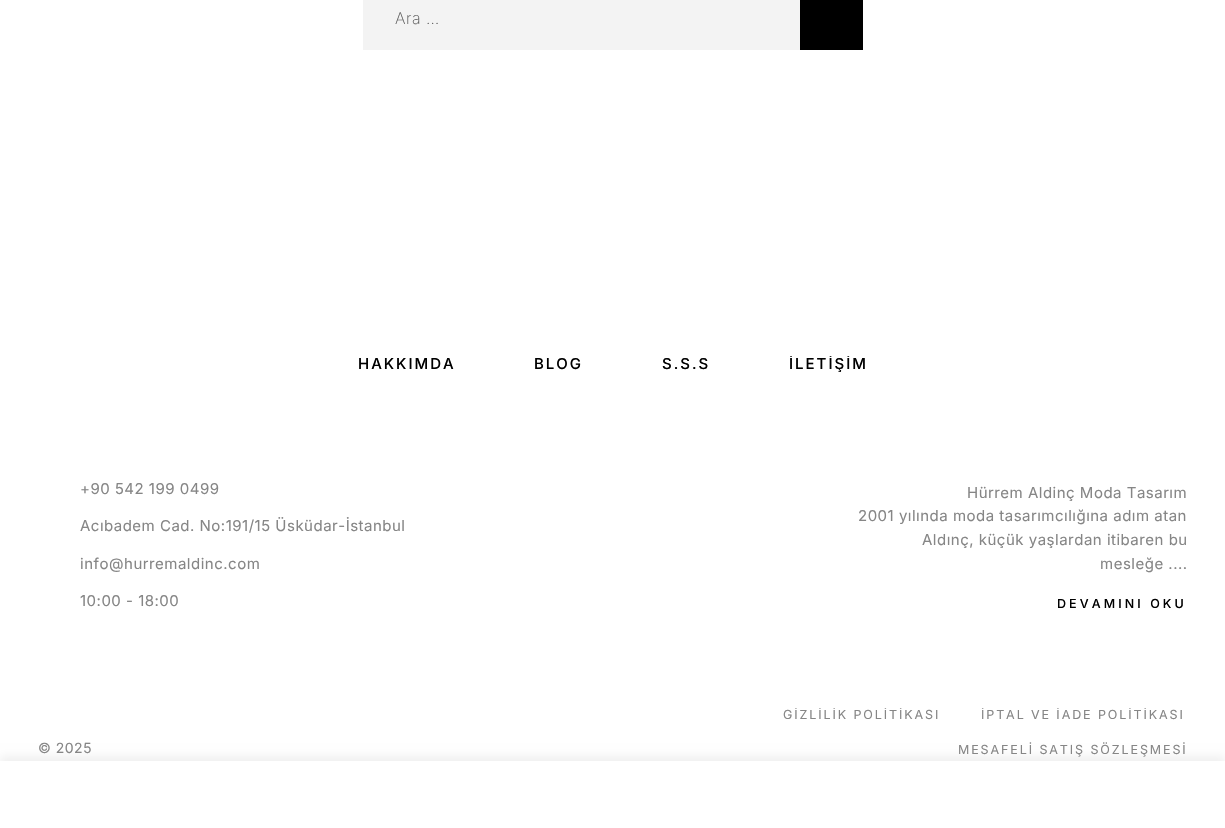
#include "include/core/SkBlurTypes.h"
#include "include/core/SkCanvas.h"
#include "include/core/SkData.h"
#include "include/core/SkFont.h"
#include "include/core/SkFontMgr.h"
#include "include/core/SkImage.h"
#include "include/core/SkMaskFilter.h"
#include "include/core/SkPaint.h"
#include "include/core/SkPathBuilder.h"
#include "include/core/SkTextBlob.h"
#include "include/effects/SkDashPathEffect.h"
#include "include/effects/SkGradientShader.h"
#include "include/utils/SkParsePath.h"

extern sk_sp<SkFontMgr> fontMgr;

void draw(SkCanvas* canvas) {
  SkPaint p;
  p.setAntiAlias(true);
  auto spacedText = [&](const char* s, float x, float y, const SkFont& font, const SkPaint& ink, float letter, float word) {
    std::vector<SkGlyphID> glyphs(font.countText(s, strlen(s), SkTextEncoding::kUTF8));
    std::vector<float> xs(glyphs.size());
    font.textToGlyphs(s, strlen(s), SkTextEncoding::kUTF8, glyphs);
    font.getXPos(glyphs, xs, x);
    float extra = 0;
    for (size_t i = 0; i < glyphs.size(); i++) {
      xs[i] += extra;
      extra += letter + word * (glyphs[i] == font.unicharToGlyph(' '));
    }
    canvas->drawTextBlob(SkTextBlob::MakeFromPosHGlyphs(glyphs, xs, y, font), 0, 0, ink);
  };
  canvas->clear(SK_ColorWHITE);
  p.setColor(SkColorSetRGB(243, 243, 243));
  canvas->drawRect(SkRect::MakeLTRB(363, 0, 800, 50), p);
  p.setColor(SK_ColorBLACK);
  canvas->drawRect(SkRect::MakeLTRB(800, 0, 863, 50), p);
  p.setColor(SkColorSetARGB(15, 0, 0, 0));
  p.setMaskFilter(SkMaskFilter::MakeBlur(kNormal_SkBlurStyle, 4.5f));
  canvas->drawRect(SkRect::MakeLTRB(0, 756, 1225, 824), p);
  p.setMaskFilter(nullptr);
  p.setColor(SK_ColorWHITE);
  canvas->drawRect(SkRect::MakeLTRB(0, 761, 1225, 828), p);
  SkFont font1(fontMgr->matchFamilyStyle("Inter", SkFontStyle(200, SkFontStyle::kNormal_Width, SkFontStyle::kUpright_Slant)), 16);
  font1.setSubpixel(true);
  p.setColor(SkColorSetRGB(97, 97, 97));
  spacedText("Ara …", 395, 24, font1, p, 0.5f, 0);
  SkFont font2(fontMgr->matchFamilyStyle("Inter", SkFontStyle(500, SkFontStyle::kNormal_Width, SkFontStyle::kUpright_Slant)), 15);
  font2.setSubpixel(true);
  p.setColor(SK_ColorBLACK);
  spacedText("HAKKIMDA", 358, 369, font2, p, 2, 0);
  spacedText("BLOG", 534, 369, font2, p, 2, 0);
  spacedText("S.S.S", 662, 369, font2, p, 2, 0);
  canvas->save();
  canvas->clipRect(SkRect::MakeLTRB(0, 356, 1225, 416));
  spacedText("İLETİŞİM", 789, 369, font2, p, 2, 0);
  canvas->restore();
  SkFont font3(fontMgr->matchFamilyStyle("Inter", SkFontStyle::Normal()), 15);
  font3.setSubpixel(true);
  p.setColor(SkColorSetRGB(134, 134, 134));
  spacedText("+90 542 199 0499", 80, 494, font3, p, 0.5f, 0);
  spacedText("Acıbadem Cad. No:191/15 Üsküdar-İstanbul", 80, 531, font3, p, 0.5f, 0);
  spacedText("info@hurremaldinc.com", 80, 569, font3, p, 0.5f, 0);
  spacedText("10:00 - 18:00", 80, 606, font3, p, 0.5f, 0);
  spacedText("Hürrem Aldinç Moda Tasarım", 967, 498, font3, p, 0.5f, 0);
  spacedText("2001 yılında moda tasarımcılığına adım atan", 858, 521, font3, p, 0.5f, 0);
  spacedText("Aldınç, küçük yaşlardan itibaren bu", 922, 545, font3, p, 0.5f, 0);
  spacedText("mesleğe ....", 1100, 569, font3, p, 0.5f, 0);
  SkFont font4(fontMgr->matchFamilyStyle("Inter", SkFontStyle(500, SkFontStyle::kNormal_Width, SkFontStyle::kUpright_Slant)), 12.5f);
  font4.setSubpixel(true);
  p.setColor(SK_ColorBLACK);
  spacedText("DEVAMINI OKU", 1057, 608, font4, p, 3.1f, 0);
  SkFont font5(fontMgr->matchFamilyStyle("Inter", SkFontStyle::Normal()), 14);
  font5.setSubpixel(true);
  p.setColor(SkColorSetRGB(134, 134, 134));
  spacedText("© 2025", 38, 753, font5, p, 0.5f, 0);
  canvas->save();
  canvas->clipRect(SkRect::MakeLTRB(594, 708, 1206, 778));
  SkFont font6(fontMgr->matchFamilyStyle("Inter", SkFontStyle::Normal()), 12.5f);
  font6.setSubpixel(true);
  spacedText("GİZLİLİK POLİTİKASI", 783, 719, font6, p, 1.9f, 0);
  spacedText("İPTAL VE İADE POLİTİKASI", 981, 719, font6, p, 1.9f, 0);
  canvas->restore();
  spacedText("MESAFELİ SATIŞ SÖZLEŞMESİ", 958, 754, font6, p, 1.9f, 0);
}
